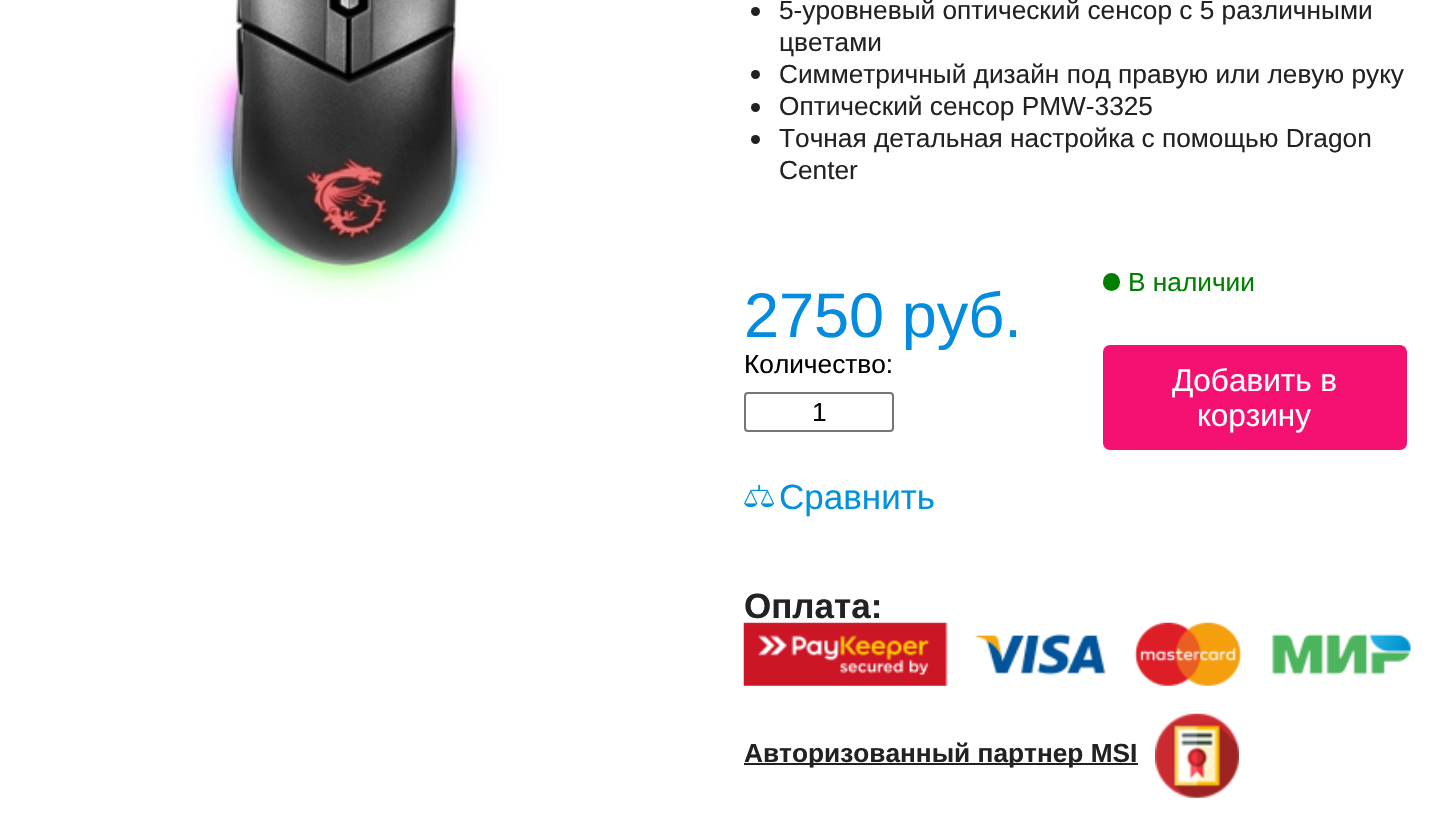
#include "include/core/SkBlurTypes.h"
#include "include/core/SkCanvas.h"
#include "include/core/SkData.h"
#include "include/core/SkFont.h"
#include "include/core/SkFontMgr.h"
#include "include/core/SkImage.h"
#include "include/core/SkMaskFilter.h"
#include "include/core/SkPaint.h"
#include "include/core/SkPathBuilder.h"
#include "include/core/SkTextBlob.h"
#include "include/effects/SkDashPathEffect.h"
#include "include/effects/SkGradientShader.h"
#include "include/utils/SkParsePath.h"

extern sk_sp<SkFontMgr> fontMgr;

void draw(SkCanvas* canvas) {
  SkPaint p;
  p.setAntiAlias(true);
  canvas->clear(SK_ColorWHITE);
  canvas->drawImageRect(SkImages::DeferredFromEncodedData(SkData::MakeFromFileName("images/1.png")), SkRect::MakeLTRB(193, 0, 498, 302), SkSamplingOptions());
  p.setColor(SkColorSetRGB(34, 34, 34));
  canvas->drawCircle(755.5f, 11.5f, 4.5f, p);
  canvas->drawCircle(755.5f, 74.5f, 4.5f, p);
  canvas->drawCircle(755.5f, 107.5f, 4.5f, p);
  canvas->drawCircle(755.5f, 139.5f, 4.5f, p);
  p.setColor(SkColorSetRGB(0, 128, 0));
  canvas->drawRoundRect(SkRect::MakeLTRB(1103, 273, 1120, 291), 8.5f, 8.5f, p);
  p.setStyle(SkPaint::kStroke_Style);
  p.setStrokeWidth(2);
  p.setColor(SkColorSetRGB(118, 118, 118));
  canvas->drawRoundRect(SkRect::MakeLTRB(745, 393, 893, 431), 3, 3, p);
  canvas->drawImageRect(SkImages::DeferredFromEncodedData(SkData::MakeFromFileName("images/2.png")), SkRect::MakeLTRB(744, 484, 775, 508), SkSamplingOptions());
  p.setStyle(SkPaint::kFill_Style);
  p.setColor(SkColorSetRGB(245, 17, 114));
  canvas->drawRoundRect(SkRect::MakeLTRB(1103, 345, 1407, 450), 7, 7, p);
  canvas->drawImageRect(SkImages::DeferredFromEncodedData(SkData::MakeFromFileName("images/3.png")), SkRect::MakeLTRB(743, 622, 1411, 686), SkSamplingOptions());
  p.setColor(SkColorSetRGB(34, 34, 34));
  canvas->drawRect(SkRect::MakeLTRB(744, 763, 1138, 765), p);
  canvas->drawImageRect(SkImages::DeferredFromEncodedData(SkData::MakeFromFileName("images/4.png")), SkRect::MakeLTRB(1155, 713, 1239, 798), SkSamplingOptions());
  SkFont font1(fontMgr->matchFamilyStyle("Liberation Sans", SkFontStyle::Normal()), 26.25f);
  font1.setSubpixel(true);
  canvas->drawString("5-уровневый оптический сенсор с 5 различными", 779, 19, font1, p);
  canvas->drawString("цветами", 779, 51, font1, p);
  canvas->drawString("Симметричный дизайн под правую или левую руку", 779, 83, font1, p);
  canvas->drawString("Оптический сенсор PMW-3325", 779, 115, font1, p);
  canvas->drawString("Точная детальная настройка с помощью Dragon", 779, 147, font1, p);
  canvas->drawString("Center", 779, 179, font1, p);
  p.setColor(SkColorSetRGB(0, 128, 0));
  canvas->drawString("В наличии", 1128, 291, font1, p);
  SkFont font2(fontMgr->matchFamilyStyle("Liberation Sans", SkFontStyle::Normal()), 63);
  font2.setSubpixel(true);
  p.setColor(SkColorSetRGB(3, 140, 221));
  canvas->drawString("2750 руб.", 744, 337, font2, p);
  p.setColor(SK_ColorBLACK);
  canvas->drawString("Количество:", 744, 373, font1, p);
  canvas->drawString("1", 812, 421, font1, p);
  SkFont font3(fontMgr->matchFamilyStyle("Liberation Sans", SkFontStyle::Normal()), 35);
  font3.setSubpixel(true);
  p.setColor(SkColorSetRGB(2, 146, 219));
  canvas->drawString("Сравнить", 779, 509, font3, p);
  SkFont font4(fontMgr->matchFamilyStyle("Liberation Sans", SkFontStyle::Normal()), 31.5f);
  font4.setSubpixel(true);
  p.setColor(SK_ColorWHITE);
  canvas->drawString("Добавить в", 1172, 391, font4, p);
  canvas->drawString("корзину", 1197, 426, font4, p);
  SkFont font5(fontMgr->matchFamilyStyle("Liberation Sans", SkFontStyle::Bold()), 35);
  font5.setSubpixel(true);
  p.setColor(SkColorSetRGB(34, 34, 34));
  canvas->drawString("Оплата:", 744, 618, font5, p);
  SkFont font6(fontMgr->matchFamilyStyle("Liberation Sans", SkFontStyle::Bold()), 26.25f);
  font6.setSubpixel(true);
  canvas->drawString("Авторизованный партнер MSI", 744, 762, font6, p);
}
